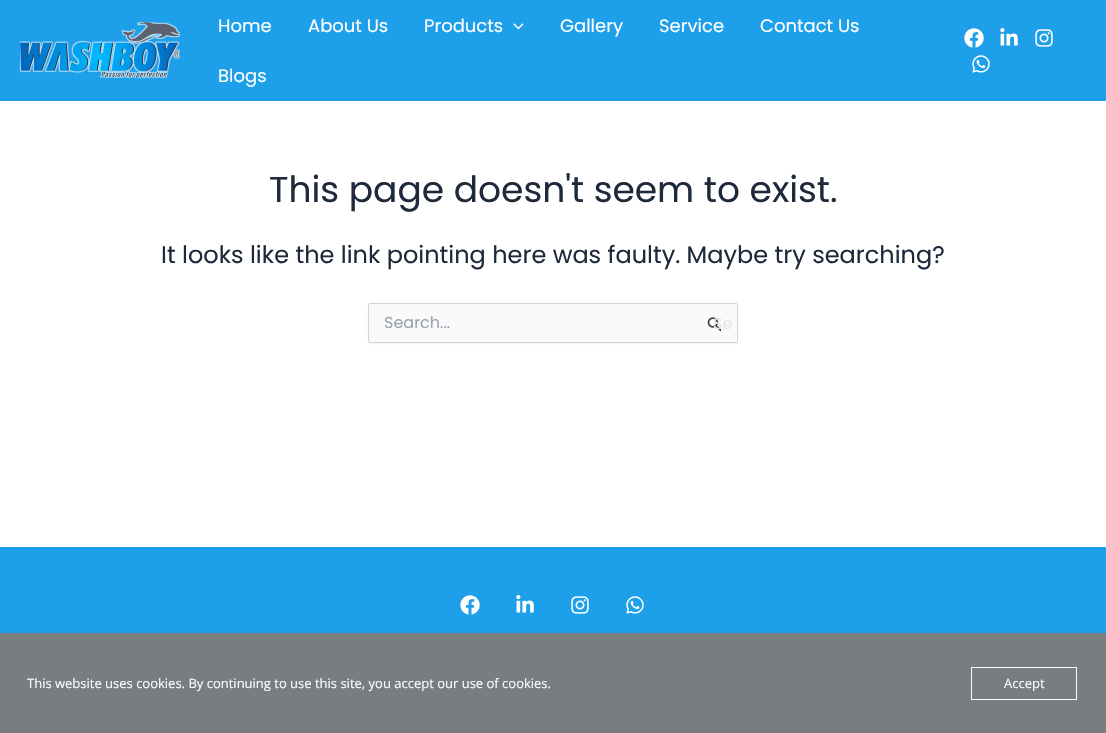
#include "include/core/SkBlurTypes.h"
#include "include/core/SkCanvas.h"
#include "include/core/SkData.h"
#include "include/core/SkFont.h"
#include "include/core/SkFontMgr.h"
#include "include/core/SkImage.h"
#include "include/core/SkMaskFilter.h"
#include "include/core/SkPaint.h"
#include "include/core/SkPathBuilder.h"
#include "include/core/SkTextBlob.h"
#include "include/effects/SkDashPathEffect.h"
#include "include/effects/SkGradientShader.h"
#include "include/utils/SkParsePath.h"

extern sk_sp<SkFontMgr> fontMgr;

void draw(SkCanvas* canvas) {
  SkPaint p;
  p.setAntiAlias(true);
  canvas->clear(SK_ColorWHITE);
  p.setColor(SkColorSetRGB(29, 159, 233));
  canvas->drawRect(SkRect::MakeLTRB(0, 0, 1106, 101), p);
  canvas->drawImageRect(SkImages::DeferredFromEncodedData(SkData::MakeFromFileName("images/1.png")), SkRect::MakeLTRB(20, 21, 180, 79), SkSamplingOptions());
  canvas->drawImageRect(SkImages::DeferredFromEncodedData(SkData::MakeFromFileName("images/2.png")), SkRect::MakeLTRB(513, 23, 524, 30), SkSamplingOptions());
  canvas->drawImageRect(SkImages::DeferredFromEncodedData(SkData::MakeFromFileName("images/3.png")), SkRect::MakeLTRB(964, 28, 984, 48), SkSamplingOptions());
  canvas->drawImageRect(SkImages::DeferredFromEncodedData(SkData::MakeFromFileName("images/4.png")), SkRect::MakeLTRB(1000, 28, 1018, 46), SkSamplingOptions());
  canvas->drawImageRect(SkImages::DeferredFromEncodedData(SkData::MakeFromFileName("images/5.png")), SkRect::MakeLTRB(1035, 29, 1053, 47), SkSamplingOptions());
  canvas->drawImageRect(SkImages::DeferredFromEncodedData(SkData::MakeFromFileName("images/6.png")), SkRect::MakeLTRB(972, 55, 990, 73), SkSamplingOptions());
  p.setColor(SkColorSetARGB(13, 0, 0, 0));
  p.setMaskFilter(SkMaskFilter::MakeBlur(kNormal_SkBlurStyle, 1));
  canvas->drawRoundRect(SkRect::MakeLTRB(368, 304, 738, 344), 2, 2, p);
  p.setMaskFilter(nullptr);
  p.setColor(SkColorSetRGB(250, 250, 250));
  canvas->drawRoundRect(SkRect::MakeLTRB(368.5f, 303.5f, 737.5f, 342.5f), 1.5f, 1.5f, p);
  p.setStyle(SkPaint::kStroke_Style);
  p.setStrokeWidth(1);
  p.setColor(SkColorSetRGB(209, 213, 219));
  canvas->drawRoundRect(SkRect::MakeLTRB(368.5f, 303.5f, 737.5f, 342.5f), 1.5f, 1.5f, p);
  canvas->drawImageRect(SkImages::DeferredFromEncodedData(SkData::MakeFromFileName("images/7.png")), SkRect::MakeLTRB(707, 317, 721, 332), SkSamplingOptions());
  p.setStyle(SkPaint::kFill_Style);
  p.setColor(SkColorSetRGB(29, 159, 233));
  canvas->drawRect(SkRect::MakeLTRB(0, 547, 1106, 633), p);
  p.setColor(SkColorSetRGB(121, 125, 127));
  canvas->drawRect(SkRect::MakeLTRB(0, 633, 1106, 733), p);
  canvas->drawImageRect(SkImages::DeferredFromEncodedData(SkData::MakeFromFileName("images/3.png")), SkRect::MakeLTRB(460, 595, 480, 615), SkSamplingOptions());
  canvas->drawImageRect(SkImages::DeferredFromEncodedData(SkData::MakeFromFileName("images/4.png")), SkRect::MakeLTRB(516, 595, 534, 613), SkSamplingOptions());
  canvas->drawImageRect(SkImages::DeferredFromEncodedData(SkData::MakeFromFileName("images/5.png")), SkRect::MakeLTRB(571, 596, 589, 614), SkSamplingOptions());
  canvas->drawImageRect(SkImages::DeferredFromEncodedData(SkData::MakeFromFileName("images/6.png")), SkRect::MakeLTRB(626, 596, 644, 614), SkSamplingOptions());
  p.setStyle(SkPaint::kStroke_Style);
  p.setColor(SkColorSetRGB(248, 252, 254));
  canvas->drawRect(SkRect::MakeLTRB(971.5f, 667.5f, 1076.5f, 699.5f), p);
  SkFont font1(fontMgr->matchFamilyStyle("Poppins", SkFontStyle::Normal()), 18);
  font1.setSubpixel(true);
  p.setStyle(SkPaint::kFill_Style);
  p.setColor(SkColorSetRGB(254, 254, 254));
  canvas->drawString("Home", 218, 32, font1, p);
  canvas->drawString("About Us", 308, 32, font1, p);
  canvas->drawString("Products", 424, 32, font1, p);
  canvas->drawString("Gallery", 560, 32, font1, p);
  canvas->drawString("Service", 659, 32, font1, p);
  canvas->drawString("Contact Us", 760, 32, font1, p);
  canvas->drawString("Blogs", 218, 82, font1, p);
  SkFont font2(fontMgr->matchFamilyStyle("Poppins", SkFontStyle::Normal()), 36);
  font2.setSubpixel(true);
  p.setColor(SkColorSetRGB(30, 41, 59));
  canvas->drawString("This page doesn't seem to exist.", 269, 202, font2, p);
  SkFont font3(fontMgr->matchFamilyStyle("Poppins", SkFontStyle::Normal()), 24);
  font3.setSubpixel(true);
  canvas->drawString("It looks like the link pointing here was faulty. Maybe try searching?", 161, 263, font3, p);
  SkFont font4(fontMgr->matchFamilyStyle("Poppins", SkFontStyle::Normal()), 16);
  font4.setSubpixel(true);
  p.setColor(SkColorSetRGB(156, 163, 175));
  canvas->drawString("Search...", 384, 328, font4, p);
  p.setColor(SkColorSetRGB(229, 229, 229));
  canvas->drawString("Se", 713, 329, font4, p);
  SkFont font5(fontMgr->matchFamilyStyle("Open Sans", SkFontStyle::Normal()), 13);
  font5.setSubpixel(true);
  p.setColor(SkColorSetRGB(248, 252, 254));
  canvas->drawString("This website uses cookies. By continuing to use this site, you accept our use of cookies.", 27, 688, font5, p);
  canvas->drawString("Accept", 1004, 688, font5, p);
}
